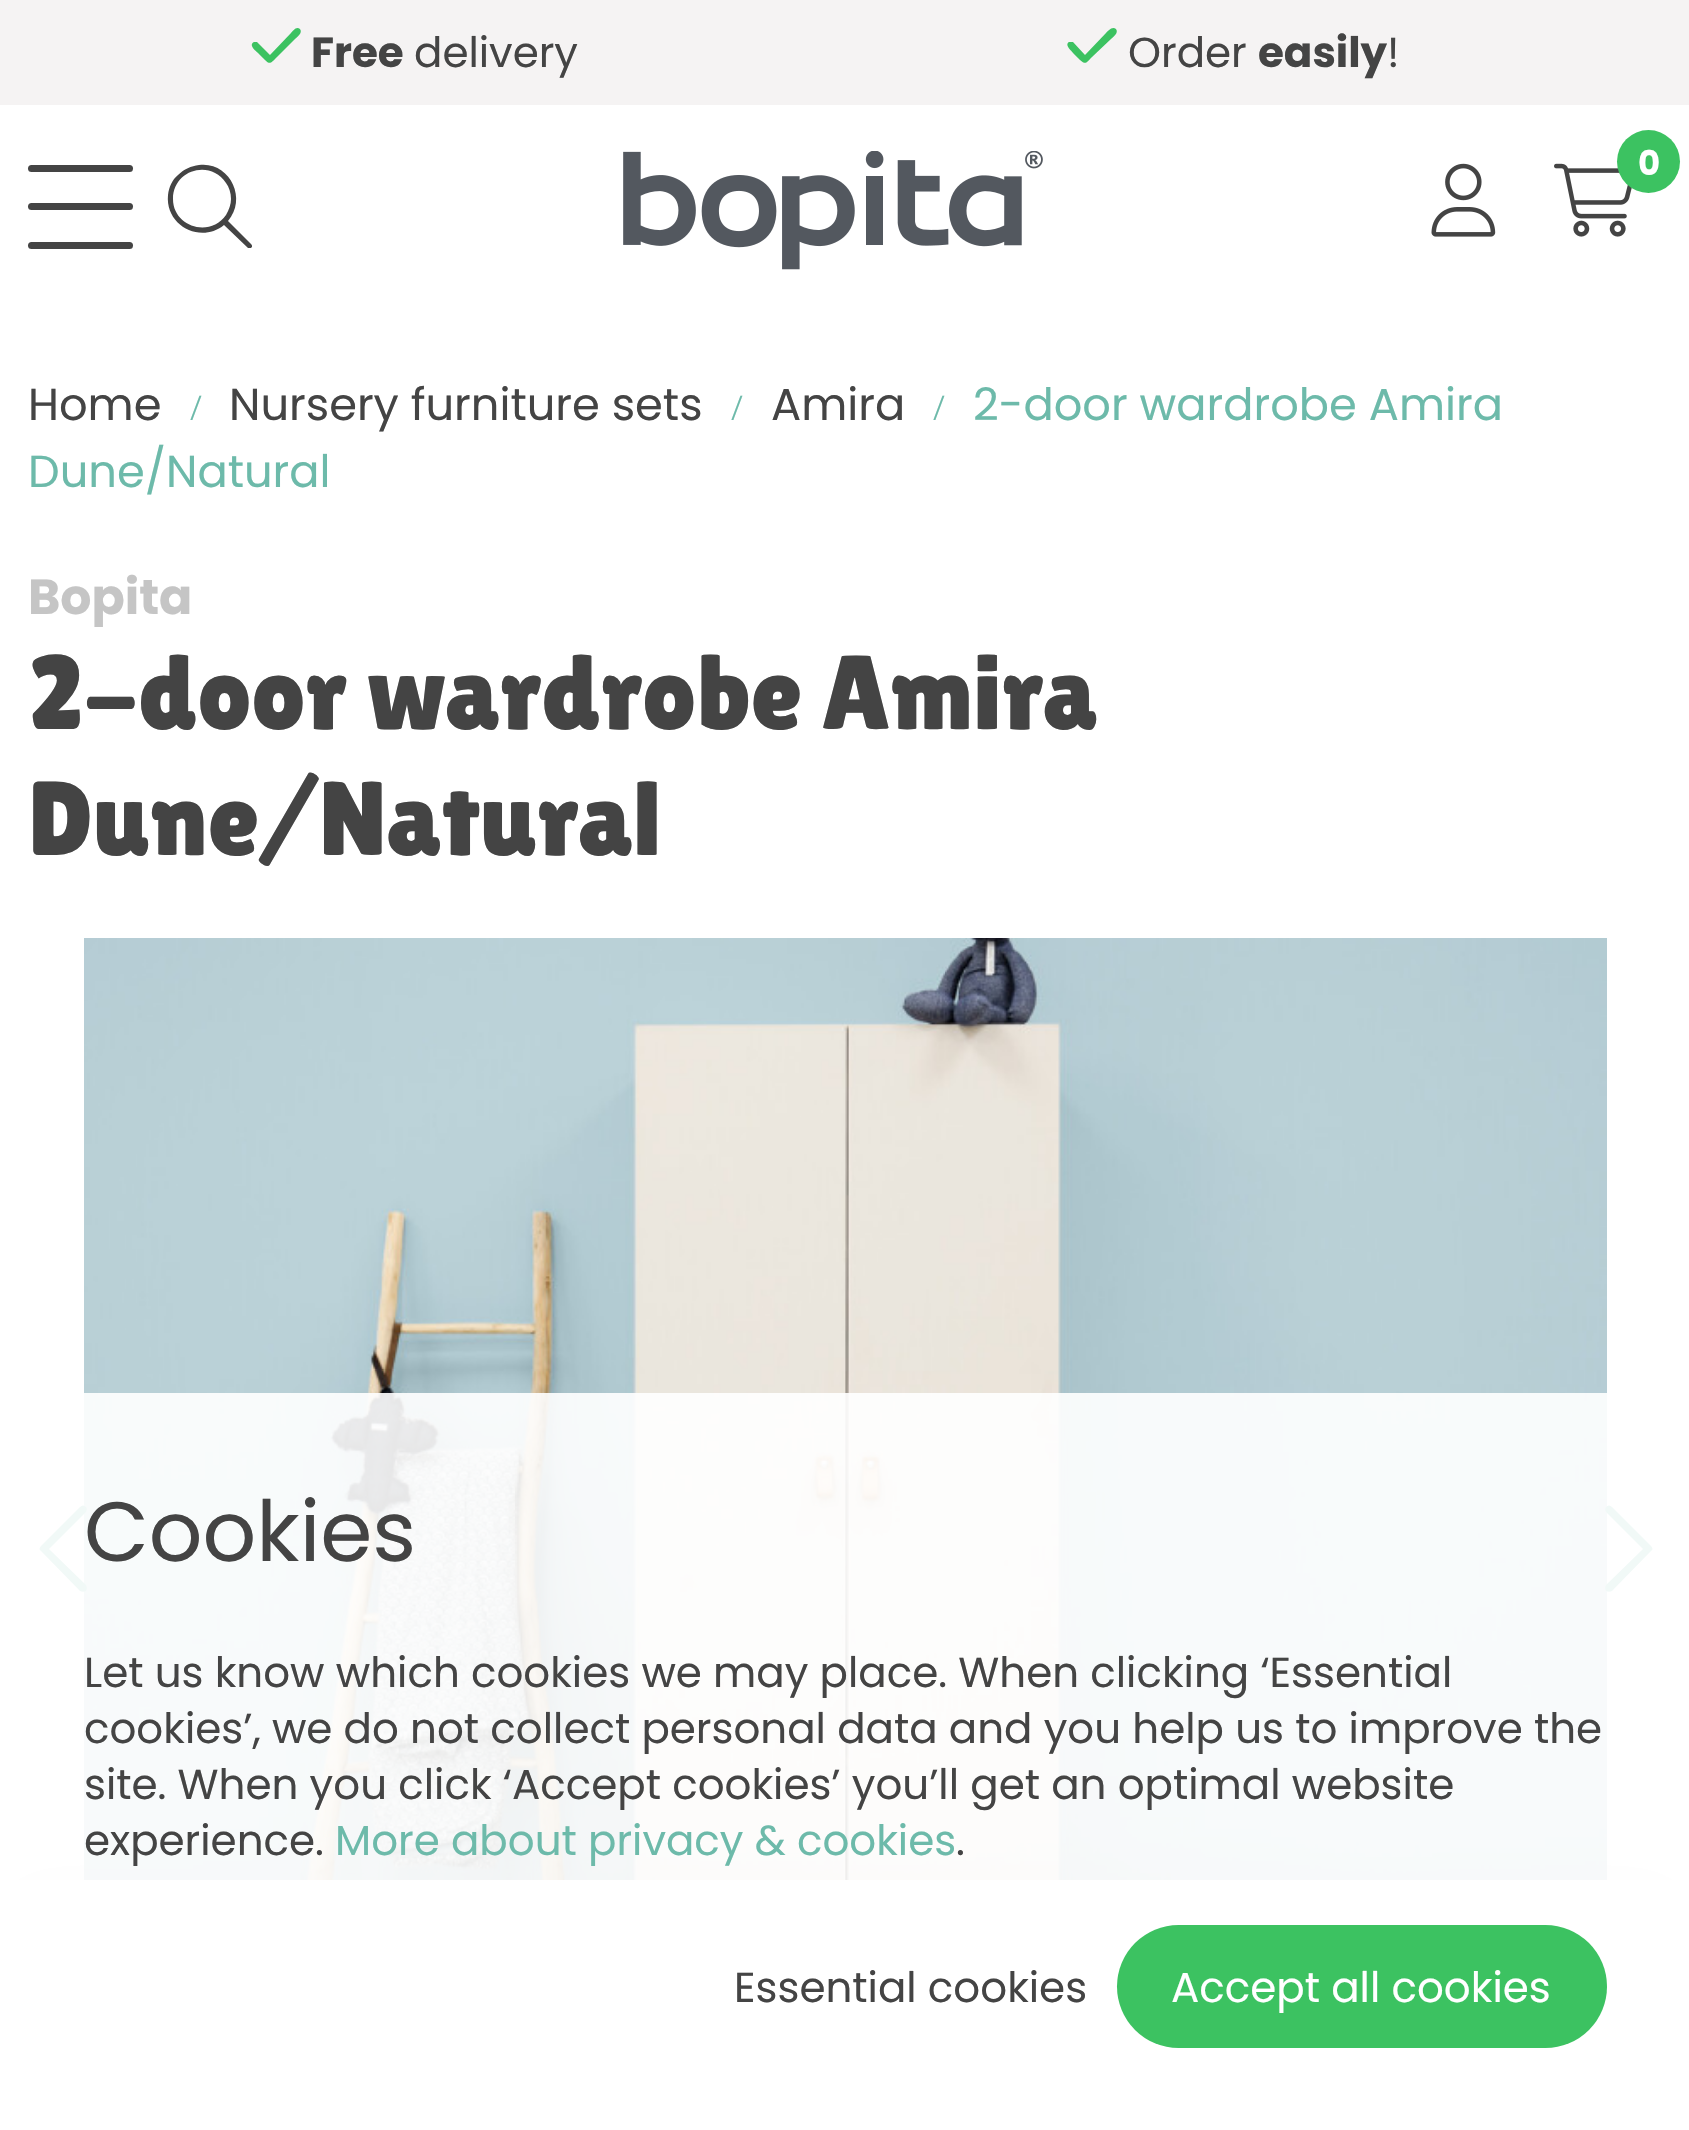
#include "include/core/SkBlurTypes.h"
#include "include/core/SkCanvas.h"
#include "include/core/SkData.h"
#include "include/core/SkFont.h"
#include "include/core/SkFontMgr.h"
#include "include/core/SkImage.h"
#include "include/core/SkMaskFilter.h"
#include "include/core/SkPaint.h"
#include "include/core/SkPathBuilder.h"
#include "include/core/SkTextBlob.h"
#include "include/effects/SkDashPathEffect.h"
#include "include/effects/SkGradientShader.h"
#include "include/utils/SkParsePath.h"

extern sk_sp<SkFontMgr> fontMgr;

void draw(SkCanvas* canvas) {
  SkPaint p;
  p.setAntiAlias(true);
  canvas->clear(SK_ColorWHITE);
  p.setColor(SkColorSetRGB(245, 243, 243));
  canvas->drawRect(SkRect::MakeLTRB(0, 0, 1689, 105), p);
  p.setColor(SkColorSetRGB(60, 194, 97));
  canvas->drawPath(SkPathBuilder().moveTo(300, 29).cubicTo(303, 33, 297, 37, 295, 39).lineTo(277, 57).cubicTo(271, 63, 270, 65, 265, 60).lineTo(258, 53).cubicTo(256, 51, 248, 45, 254, 42).cubicTo(255, 42, 256, 42, 257, 42).lineTo(270, 55).lineTo(291, 33).cubicTo(293, 31, 296, 26, 300, 29).close().detach(), p);
  canvas->drawPath(SkPathBuilder().moveTo(1116, 29).cubicTo(1119, 33, 1113, 37, 1111, 39).lineTo(1092, 57).cubicTo(1086, 63, 1086, 65, 1080, 60).lineTo(1073, 53).cubicTo(1072, 51, 1064, 45, 1069, 42).cubicTo(1070, 42, 1072, 42, 1073, 42).lineTo(1085, 55).lineTo(1106, 33).cubicTo(1108, 31, 1112, 26, 1116, 29).close().detach(), p);
  p.setColor(SkColorSetRGB(68, 68, 68));
  canvas->drawRoundRect(SkRect::MakeLTRB(28, 203, 133, 210), 3.5f, 3.5f, p);
  canvas->drawRoundRect(SkRect::MakeLTRB(28, 165, 133, 172), 3.5f, 3.5f, p);
  canvas->drawRoundRect(SkRect::MakeLTRB(28, 242, 133, 249), 3.5f, 3.5f, p);
  canvas->drawPath(SkPathBuilder().moveTo(231, 199).cubicTo(231, 193, 229, 187, 226, 183).cubicTo(210, 159, 173, 170, 173, 199).cubicTo(173, 227, 210, 238, 226, 215).cubicTo(229, 210, 231, 204, 231, 199).close().moveTo(224, 225).cubicTo(201, 244, 165, 226, 168, 195).cubicTo(169, 187, 172, 180, 178, 175).cubicTo(184, 169, 191, 166, 199, 165).cubicTo(229, 161, 248, 198, 228, 221).lineTo(251, 244).cubicTo(253, 246, 252, 248, 250, 248).lineTo(248, 248).close().detach(), p);
  canvas->drawImageRect(SkImages::DeferredFromEncodedData(SkData::MakeFromFileName("images/1.png")), SkRect::MakeLTRB(623, 151, 1043, 270), SkSamplingOptions());
  canvas->drawImageRect(SkImages::DeferredFromEncodedData(SkData::MakeFromFileName("images/2.png")), SkRect::MakeLTRB(1431, 163, 1496, 237), SkSamplingOptions());
  canvas->drawImageRect(SkImages::DeferredFromEncodedData(SkData::MakeFromFileName("images/3.png")), SkRect::MakeLTRB(1554, 163, 1632, 237), SkSamplingOptions());
  p.setColor(SkColorSetRGB(60, 194, 97));
  canvas->drawCircle(1648.5f, 161.5f, 31.5f, p);
  canvas->drawImageRect(SkImages::DeferredFromEncodedData(SkData::MakeFromFileName("images/4.png")), SkRect::MakeLTRB(84, 938, 1607, 1880), SkSamplingOptions());
  p.setColor(SkColorSetRGB(109, 186, 170));
  canvas->drawPath(SkPathBuilder().moveTo(41, 1551).cubicTo(39, 1550, 39, 1548, 41, 1546).lineTo(80, 1507).cubicTo(82, 1505, 84, 1505, 86, 1507).cubicTo(87, 1508, 87, 1510, 86, 1512).lineTo(49, 1549).lineTo(86, 1585).cubicTo(87, 1587, 87, 1589, 86, 1591).cubicTo(84, 1592, 82, 1592, 80, 1591).close().detach(), p);
  canvas->drawPath(SkPathBuilder().moveTo(1651, 1546).cubicTo(1653, 1548, 1653, 1550, 1651, 1551).lineTo(1612, 1591).cubicTo(1610, 1592, 1608, 1592, 1606, 1591).cubicTo(1605, 1589, 1605, 1587, 1606, 1585).lineTo(1643, 1549).lineTo(1606, 1512).cubicTo(1605, 1510, 1605, 1508, 1606, 1507).cubicTo(1608, 1505, 1610, 1505, 1612, 1507).close().detach(), p);
  p.setColor(SkColorSetARGB(26, 0, 0, 0));
  p.setMaskFilter(SkMaskFilter::MakeBlur(kNormal_SkBlurStyle, 35));
  canvas->drawRect(SkRect::MakeLTRB(0, 1880, 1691, 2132), p);
  p.setMaskFilter(nullptr);
  p.setColor(SK_ColorWHITE);
  canvas->drawRect(SkRect::MakeLTRB(0, 1880, 1689, 2130), p);
  p.setColor(SkColorSetARGB(230, 255, 255, 255));
  canvas->drawRect(SkRect::MakeLTRB(0, 1393, 1689, 1880), p);
  p.setColor(SkColorSetRGB(60, 194, 97));
  canvas->drawRoundRect(SkRect::MakeLTRB(1117, 1925, 1607, 2048), 61.5f, 61.5f, p);
  SkFont font1(fontMgr->matchFamilyStyle("Poppins", SkFontStyle::Bold()), 42);
  font1.setSubpixel(true);
  p.setColor(SkColorSetRGB(68, 68, 68));
  canvas->drawString("Free", 311, 67, font1, p);
  SkFont font2(fontMgr->matchFamilyStyle("Poppins", SkFontStyle::Normal()), 42);
  font2.setSubpixel(true);
  canvas->drawString("delivery", 414, 67, font2, p);
  canvas->drawString("Order", 1128, 67, font2, p);
  canvas->drawString("easily", 1258, 67, font1, p);
  canvas->drawString("!", 1387, 67, font2, p);
  SkFont font3(fontMgr->matchFamilyStyle("Poppins", SkFontStyle::Bold()), 34);
  font3.setSubpixel(true);
  p.setColor(SK_ColorWHITE);
  canvas->drawString("0", 1638, 175, font3, p);
  SkFont font4(fontMgr->matchFamilyStyle("Poppins", SkFontStyle::Normal()), 44.75f);
  font4.setSubpixel(true);
  p.setColor(SkColorSetRGB(68, 68, 68));
  canvas->drawString("Home", 28, 420, font4, p);
  SkFont font5(fontMgr->matchFamilyStyle("Noto Sans", SkFontStyle(300, SkFontStyle::kNormal_Width, SkFontStyle::kUpright_Slant)), 34);
  font5.setSubpixel(true);
  p.setColor(SkColorSetRGB(109, 186, 170));
  canvas->drawString("/", 190, 420, font5, p);
  p.setColor(SkColorSetRGB(68, 68, 68));
  canvas->drawString("Nursery furniture sets", 229, 420, font4, p);
  p.setColor(SkColorSetRGB(109, 186, 170));
  canvas->drawString("/", 731, 420, font5, p);
  p.setColor(SkColorSetRGB(68, 68, 68));
  canvas->drawString("Amira", 771, 420, font4, p);
  p.setColor(SkColorSetRGB(109, 186, 170));
  canvas->drawString("/", 933, 420, font5, p);
  canvas->drawString("2-door wardrobe Amira", 973, 420, font4, p);
  canvas->drawString("Dune/Natural", 28, 487, font4, p);
  SkFont font6(fontMgr->matchFamilyStyle("Poppins", SkFontStyle::Bold()), 49);
  font6.setSubpixel(true);
  p.setColor(SkColorSetRGB(197, 197, 197));
  canvas->drawString("Bopita", 28, 614, font6, p);
  SkFont font7(fontMgr->matchFamilyStyle("Lilita One", SkFontStyle::Normal()), 105);
  font7.setSubpixel(true);
  p.setColor(SkColorSetRGB(68, 68, 68));
  canvas->drawString("2-door wardrobe Amira", 28, 729, font7, p);
  canvas->drawString("Dune/Natural", 28, 855, font7, p);
  SkFont font8(fontMgr->matchFamilyStyle("Poppins", SkFontStyle::Normal()), 84);
  font8.setSubpixel(true);
  canvas->drawString("Cookies", 84, 1561, font8, p);
  canvas->drawString("Let us know which cookies we may place. When clicking ‘Essential", 84, 1687, font2, p);
  canvas->drawString("cookies’, we do not collect personal data and you help us to improve the", 84, 1743, font2, p);
  canvas->drawString("site. When you click ‘Accept cookies’ you’ll get an optimal website", 84, 1799, font2, p);
  canvas->drawString("experience.", 84, 1855, font2, p);
  p.setColor(SkColorSetRGB(109, 186, 170));
  canvas->drawString("More about privacy & cookies", 335, 1855, font2, p);
  p.setColor(SkColorSetRGB(68, 68, 68));
  canvas->drawString(".", 956, 1855, font2, p);
  canvas->drawString("Essential cookies", 734, 2002, font2, p);
  p.setColor(SK_ColorWHITE);
  canvas->drawString("Accept all cookies", 1171, 2002, font2, p);
}
